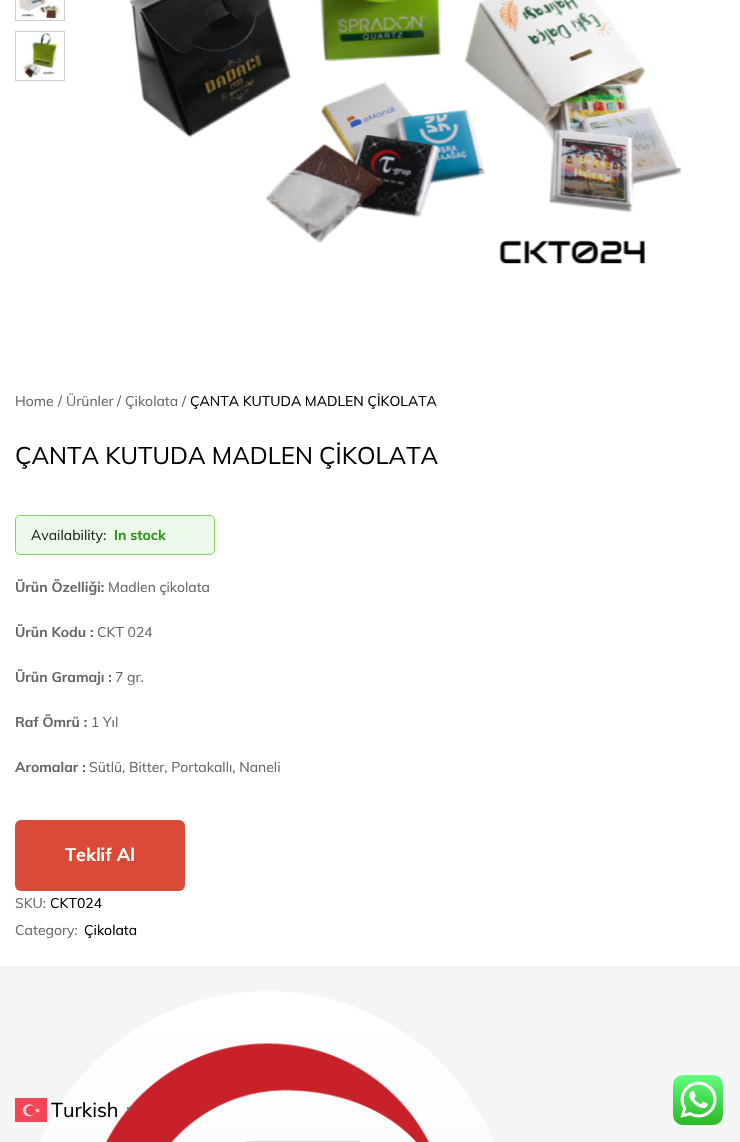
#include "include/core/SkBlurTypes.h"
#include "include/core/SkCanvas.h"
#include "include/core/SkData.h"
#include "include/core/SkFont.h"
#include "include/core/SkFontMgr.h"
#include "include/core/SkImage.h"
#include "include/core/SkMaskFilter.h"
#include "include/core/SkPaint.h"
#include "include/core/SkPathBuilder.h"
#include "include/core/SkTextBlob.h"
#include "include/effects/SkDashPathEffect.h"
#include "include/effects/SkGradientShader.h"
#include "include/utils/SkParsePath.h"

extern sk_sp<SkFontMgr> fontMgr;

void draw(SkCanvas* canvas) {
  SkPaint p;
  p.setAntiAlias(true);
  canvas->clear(SK_ColorWHITE);
  p.setStyle(SkPaint::kStroke_Style);
  p.setStrokeWidth(1);
  p.setColor(SkColorSetRGB(204, 204, 204));
  canvas->drawRect(SkRect::MakeLTRB(15.5f, -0.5f, 64.5f, 20.5f), p);
  canvas->drawImageRect(SkImages::DeferredFromEncodedData(SkData::MakeFromFileName("images/1.png")), SkRect::MakeLTRB(18, 0, 61, 19), SkSamplingOptions());
  canvas->drawRect(SkRect::MakeLTRB(15.5f, 31.5f, 64.5f, 80.5f), p);
  canvas->drawImageRect(SkImages::DeferredFromEncodedData(SkData::MakeFromFileName("images/2.png")), SkRect::MakeLTRB(23, 32, 62, 79), SkSamplingOptions());
  canvas->drawImageRect(SkImages::DeferredFromEncodedData(SkData::MakeFromFileName("images/3.png")), SkRect::MakeLTRB(129, 0, 682, 264), SkSamplingOptions());
  p.setStyle(SkPaint::kFill_Style);
  p.setColor(SkColorSetRGB(235, 250, 233));
  canvas->drawRoundRect(SkRect::MakeLTRB(15.5f, 515.5f, 214.5f, 554.5f), 4.5f, 4.5f, p);
  p.setStyle(SkPaint::kStroke_Style);
  p.setColor(SkColorSetRGB(130, 212, 94));
  canvas->drawRoundRect(SkRect::MakeLTRB(15.5f, 515.5f, 214.5f, 554.5f), 4.5f, 4.5f, p);
  p.setStyle(SkPaint::kFill_Style);
  p.setColor(SkColorSetRGB(217, 74, 56));
  canvas->drawRoundRect(SkRect::MakeLTRB(15, 820, 185, 891), 6, 6, p);
  p.setColor(SkColorSetRGB(245, 245, 245));
  canvas->drawRect(SkRect::MakeLTRB(0, 966, 740, 1142), p);
  canvas->drawImageRect(SkImages::DeferredFromEncodedData(SkData::MakeFromFileName("images/4.png")), SkRect::MakeLTRB(41, 991, 494, 1142), SkSamplingOptions());
  canvas->drawImageRect(SkImages::DeferredFromEncodedData(SkData::MakeFromFileName("images/5.png")), SkRect::MakeLTRB(15, 1098, 47, 1122), SkSamplingOptions());
  canvas->drawImageRect(SkImages::DeferredFromEncodedData(SkData::MakeFromFileName("images/6.png")), SkRect::MakeLTRB(673, 1075, 723, 1125), SkSamplingOptions());
  SkFont font1(fontMgr->matchFamilyStyle("Muli", SkFontStyle::Normal()), 14);
  font1.setSubpixel(true);
  p.setColor(SkColorSetRGB(102, 102, 102));
  canvas->drawString("Home", 15, 406, font1, p);
  canvas->drawString("/", 58, 406, font1, p);
  canvas->drawString("Ürünler", 66, 406, font1, p);
  canvas->drawString("/", 117, 406, font1, p);
  canvas->drawString("Çikolata", 125, 406, font1, p);
  canvas->drawString("/", 182, 406, font1, p);
  p.setColor(SK_ColorBLACK);
  canvas->drawString("ÇANTA KUTUDA MADLEN ÇİKOLATA", 190, 406, font1, p);
  SkFont font2(fontMgr->matchFamilyStyle("Muli", SkFontStyle::Normal()), 24);
  font2.setSubpixel(true);
  canvas->drawString("ÇANTA KUTUDA MADLEN ÇİKOLATA", 15, 464, font2, p);
  p.setColor(SkColorSetRGB(34, 34, 34));
  canvas->drawString("Availability:", 31, 540, font1, p);
  SkFont font3(fontMgr->matchFamilyStyle("Muli", SkFontStyle::Bold()), 14);
  font3.setSubpixel(true);
  p.setColor(SkColorSetRGB(38, 144, 27));
  canvas->drawString("In stock", 114, 540, font3, p);
  p.setColor(SkColorSetRGB(102, 102, 102));
  canvas->drawString("Ürün Özelliği:", 15, 592, font3, p);
  canvas->drawString("Madlen çikolata", 108, 592, font1, p);
  canvas->drawString("Ürün Kodu :", 15, 637, font3, p);
  canvas->drawString("CKT 024", 97, 637, font1, p);
  canvas->drawString("Ürün Gramajı :", 15, 682, font3, p);
  canvas->drawString("7 gr.", 115, 682, font1, p);
  canvas->drawString("Raf Ömrü :", 15, 727, font3, p);
  canvas->drawString("1 Yıl", 91, 727, font1, p);
  canvas->drawString("Aromalar :", 15, 772, font3, p);
  canvas->drawString("Sütlü, Bitter, Portakallı, Naneli", 89, 772, font1, p);
  SkFont font4(fontMgr->matchFamilyStyle("Muli", SkFontStyle::Bold()), 18);
  font4.setSubpixel(true);
  p.setColor(SK_ColorWHITE);
  canvas->drawString("Teklif Al", 65, 861, font4, p);
  p.setColor(SkColorSetRGB(102, 102, 102));
  canvas->drawString("SKU:", 15, 908, font1, p);
  p.setColor(SK_ColorBLACK);
  canvas->drawString("CKT024", 50, 908, font1, p);
  p.setColor(SkColorSetRGB(102, 102, 102));
  canvas->drawString("Category:", 15, 935, font1, p);
  p.setColor(SK_ColorBLACK);
  canvas->drawString("Çikolata", 84, 935, font1, p);
  SkFont font5(fontMgr->matchFamilyStyle("Muli", SkFontStyle::Normal()), 20);
  font5.setSubpixel(true);
  canvas->drawString("Turkish", 51, 1117, font5, p);
  SkFont font6(fontMgr->matchFamilyStyle("Liberation Sans", SkFontStyle::Bold()), 8);
  font6.setSubpixel(true);
  p.setColor(SkColorSetRGB(102, 102, 102));
  canvas->drawString("▼", 125, 1112, font6, p);
}
